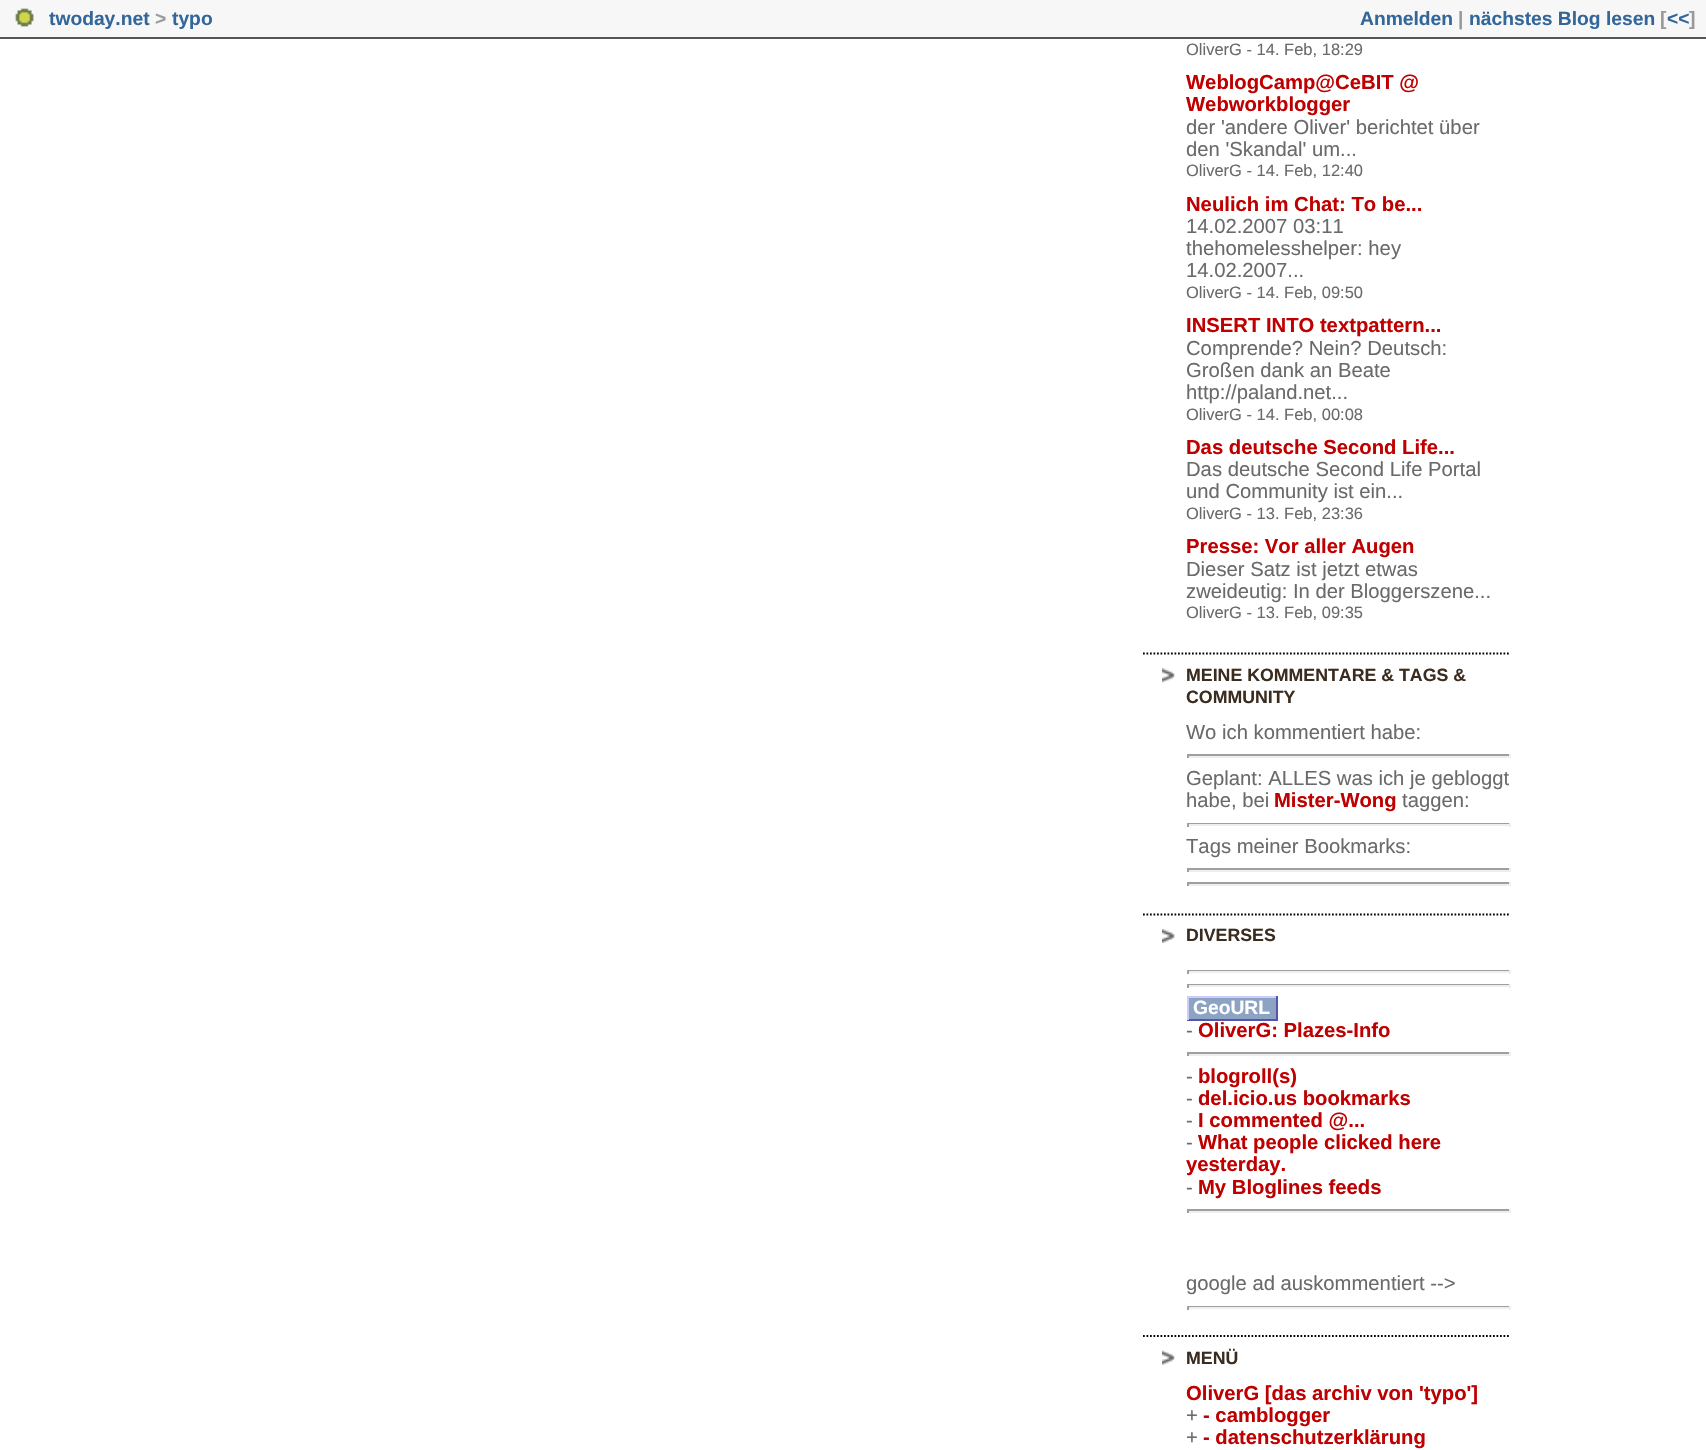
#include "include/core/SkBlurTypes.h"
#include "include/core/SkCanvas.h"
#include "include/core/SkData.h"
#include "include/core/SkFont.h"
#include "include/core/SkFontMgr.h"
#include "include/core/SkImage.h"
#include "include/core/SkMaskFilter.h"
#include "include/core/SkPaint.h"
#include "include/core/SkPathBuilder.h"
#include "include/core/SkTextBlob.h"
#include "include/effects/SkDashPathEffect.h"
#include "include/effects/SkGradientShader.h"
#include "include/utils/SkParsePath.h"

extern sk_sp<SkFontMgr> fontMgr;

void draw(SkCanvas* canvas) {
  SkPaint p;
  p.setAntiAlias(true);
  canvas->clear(SK_ColorWHITE);
  p.setColor(SkColorSetRGB(247, 247, 247));
  canvas->drawRect(SkRect::MakeLTRB(0, 0, 1706, 37), p);
  p.setColor(SkColorSetRGB(85, 85, 85));
  canvas->drawRect(SkRect::MakeLTRB(0, 37, 1706, 39), p);
  canvas->drawImageRect(SkImages::DeferredFromEncodedData(SkData::MakeFromFileName("images/1.png")), SkRect::MakeLTRB(15, 8, 34, 27), SkSamplingOptions());
  p.setStyle(SkPaint::kStroke_Style);
  p.setStrokeWidth(1.8f);
  p.setColor(SK_ColorBLACK);
  p.setPathEffect(SkDashPathEffect::Make({{1.75f, 1.75f}}, 0));
  canvas->drawPath(SkPathBuilder().moveTo(1143, 653.5f).lineTo(1510, 653.5f).detach(), p);
  p.setPathEffect(nullptr);
  canvas->drawImageRect(SkImages::DeferredFromEncodedData(SkData::MakeFromFileName("images/2.png")), SkRect::MakeLTRB(1162, 668, 1175, 683), SkSamplingOptions());
  p.setPathEffect(SkDashPathEffect::Make({{1.75f, 1.75f}}, 0));
  canvas->drawPath(SkPathBuilder().moveTo(1143, 914.5f).lineTo(1510, 914.5f).detach(), p);
  p.setPathEffect(nullptr);
  p.setStyle(SkPaint::kFill_Style);
  p.setColor(SkColorSetRGB(159, 159, 159));
  canvas->drawRect(SkRect::MakeLTRB(1187, 754, 1510, 756), p);
  p.setColor(SkColorSetRGB(238, 238, 238));
  canvas->drawRect(SkRect::MakeLTRB(1509, 754, 1511, 758), p);
  canvas->drawRect(SkRect::MakeLTRB(1187, 756, 1510, 758), p);
  p.setColor(SkColorSetRGB(159, 159, 159));
  canvas->drawRect(SkRect::MakeLTRB(1187, 754, 1189, 758), p);
  canvas->drawRect(SkRect::MakeLTRB(1187, 823, 1510, 824), p);
  p.setColor(SkColorSetRGB(238, 238, 238));
  canvas->drawRect(SkRect::MakeLTRB(1509, 823, 1511, 827), p);
  canvas->drawRect(SkRect::MakeLTRB(1187, 824, 1510, 826), p);
  p.setColor(SkColorSetRGB(159, 159, 159));
  canvas->drawRect(SkRect::MakeLTRB(1187, 823, 1189, 827), p);
  canvas->drawRect(SkRect::MakeLTRB(1187, 868, 1510, 870), p);
  p.setColor(SkColorSetRGB(238, 238, 238));
  canvas->drawRect(SkRect::MakeLTRB(1509, 868, 1511, 872), p);
  canvas->drawRect(SkRect::MakeLTRB(1187, 870, 1510, 872), p);
  p.setColor(SkColorSetRGB(159, 159, 159));
  canvas->drawRect(SkRect::MakeLTRB(1187, 868, 1189, 872), p);
  canvas->drawRect(SkRect::MakeLTRB(1187, 882, 1510, 884), p);
  p.setColor(SkColorSetRGB(238, 238, 238));
  canvas->drawRect(SkRect::MakeLTRB(1509, 882, 1511, 886), p);
  canvas->drawRect(SkRect::MakeLTRB(1187, 884, 1510, 886), p);
  p.setColor(SkColorSetRGB(159, 159, 159));
  canvas->drawRect(SkRect::MakeLTRB(1187, 882, 1189, 886), p);
  canvas->drawImageRect(SkImages::DeferredFromEncodedData(SkData::MakeFromFileName("images/3.png")), SkRect::MakeLTRB(1162, 929, 1175, 943), SkSamplingOptions());
  p.setStyle(SkPaint::kStroke_Style);
  p.setColor(SK_ColorBLACK);
  p.setPathEffect(SkDashPathEffect::Make({{1.75f, 1.75f}}, 0));
  canvas->drawPath(SkPathBuilder().moveTo(1143, 1336).lineTo(1510, 1336).detach(), p);
  p.setPathEffect(nullptr);
  p.setStyle(SkPaint::kFill_Style);
  p.setColor(SkColorSetRGB(159, 159, 159));
  canvas->drawRect(SkRect::MakeLTRB(1187, 970, 1510, 971), p);
  p.setColor(SkColorSetRGB(238, 238, 238));
  canvas->drawRect(SkRect::MakeLTRB(1509, 970, 1511, 974), p);
  canvas->drawRect(SkRect::MakeLTRB(1187, 971, 1510, 973), p);
  p.setColor(SkColorSetRGB(159, 159, 159));
  canvas->drawRect(SkRect::MakeLTRB(1187, 970, 1189, 974), p);
  canvas->drawRect(SkRect::MakeLTRB(1187, 984, 1510, 985), p);
  p.setColor(SkColorSetRGB(238, 238, 238));
  canvas->drawRect(SkRect::MakeLTRB(1509, 984, 1511, 988), p);
  canvas->drawRect(SkRect::MakeLTRB(1187, 985, 1510, 987), p);
  p.setColor(SkColorSetRGB(159, 159, 159));
  canvas->drawRect(SkRect::MakeLTRB(1187, 984, 1189, 988), p);
  p.setColor(SkColorSetRGB(140, 163, 195));
  canvas->drawRect(SkRect::MakeLTRB(1189, 998, 1276, 1019), p);
  p.setColor(SkColorSetRGB(204, 204, 255));
  canvas->drawRect(SkRect::MakeLTRB(1187, 996, 1278, 998), p);
  p.setColor(SkColorSetRGB(85, 85, 170));
  canvas->drawRect(SkRect::MakeLTRB(1276, 996, 1278, 1020), p);
  canvas->drawRect(SkRect::MakeLTRB(1187, 1019, 1278, 1021), p);
  p.setColor(SkColorSetRGB(204, 204, 255));
  canvas->drawRect(SkRect::MakeLTRB(1187, 996, 1189, 1020), p);
  p.setColor(SkColorSetRGB(159, 159, 159));
  canvas->drawRect(SkRect::MakeLTRB(1187, 1052, 1510, 1054), p);
  p.setColor(SkColorSetRGB(238, 238, 238));
  canvas->drawRect(SkRect::MakeLTRB(1509, 1052, 1511, 1056), p);
  canvas->drawRect(SkRect::MakeLTRB(1187, 1054, 1510, 1056), p);
  p.setColor(SkColorSetRGB(159, 159, 159));
  canvas->drawRect(SkRect::MakeLTRB(1187, 1052, 1189, 1056), p);
  canvas->drawRect(SkRect::MakeLTRB(1187, 1209, 1510, 1211), p);
  p.setColor(SkColorSetRGB(238, 238, 238));
  canvas->drawRect(SkRect::MakeLTRB(1509, 1209, 1511, 1213), p);
  canvas->drawRect(SkRect::MakeLTRB(1187, 1211, 1510, 1213), p);
  p.setColor(SkColorSetRGB(159, 159, 159));
  canvas->drawRect(SkRect::MakeLTRB(1187, 1209, 1189, 1213), p);
  canvas->drawRect(SkRect::MakeLTRB(1187, 1306, 1510, 1307), p);
  p.setColor(SkColorSetRGB(238, 238, 238));
  canvas->drawRect(SkRect::MakeLTRB(1509, 1306, 1511, 1310), p);
  canvas->drawRect(SkRect::MakeLTRB(1187, 1307, 1510, 1309), p);
  p.setColor(SkColorSetRGB(159, 159, 159));
  canvas->drawRect(SkRect::MakeLTRB(1187, 1306, 1189, 1310), p);
  canvas->drawImageRect(SkImages::DeferredFromEncodedData(SkData::MakeFromFileName("images/4.png")), SkRect::MakeLTRB(1162, 1350, 1175, 1365), SkSamplingOptions());
  SkFont font1(fontMgr->matchFamilyStyle("Liberation Sans", SkFontStyle::Bold()), 19.25f);
  font1.setSubpixel(true);
  p.setColor(SkColorSetRGB(51, 102, 153));
  canvas->drawString("twoday.net", 49, 25, font1, p);
  p.setColor(SkColorSetRGB(153, 153, 153));
  canvas->drawString(">", 155, 25, font1, p);
  p.setColor(SkColorSetRGB(51, 102, 153));
  canvas->drawString("typo", 172, 25, font1, p);
  canvas->drawString("Anmelden", 1360, 25, font1, p);
  p.setColor(SkColorSetRGB(153, 153, 153));
  canvas->drawString("|", 1458, 25, font1, p);
  p.setColor(SkColorSetRGB(51, 102, 153));
  canvas->drawString("nächstes Blog lesen", 1469, 25, font1, p);
  p.setColor(SkColorSetRGB(153, 153, 153));
  canvas->drawString("[", 1660, 25, font1, p);
  p.setColor(SkColorSetRGB(51, 102, 153));
  canvas->drawString("<<", 1667, 25, font1, p);
  p.setColor(SkColorSetRGB(153, 153, 153));
  canvas->drawString("]", 1689, 25, font1, p);
  SkFont font2(fontMgr->matchFamilyStyle("Liberation Sans", SkFontStyle::Normal()), 16.5f);
  font2.setSubpixel(true);
  p.setColor(SkColorSetRGB(106, 106, 106));
  canvas->drawString("OliverG - 14. Feb, 18:29", 1186, 55, font2, p);
  SkFont font3(fontMgr->matchFamilyStyle("Liberation Sans", SkFontStyle::Bold()), 20.25f);
  font3.setSubpixel(true);
  p.setColor(SkColorSetRGB(191, 0, 0));
  canvas->drawString("WeblogCamp@CeBIT @", 1186, 89, font3, p);
  canvas->drawString("Webworkblogger", 1186, 111, font3, p);
  SkFont font4(fontMgr->matchFamilyStyle("Liberation Sans", SkFontStyle::Normal()), 20.25f);
  font4.setSubpixel(true);
  p.setColor(SkColorSetRGB(106, 106, 106));
  canvas->drawString("der 'andere Oliver' berichtet über", 1186, 134, font4, p);
  canvas->drawString("den 'Skandal' um...", 1186, 156, font4, p);
  canvas->drawString("OliverG - 14. Feb, 12:40", 1186, 176, font2, p);
  p.setColor(SkColorSetRGB(191, 0, 0));
  canvas->drawString("Neulich im Chat: To be...", 1186, 211, font3, p);
  p.setColor(SkColorSetRGB(106, 106, 106));
  canvas->drawString("14.02.2007 03:11", 1186, 233, font4, p);
  canvas->drawString("thehomelesshelper: hey", 1186, 255, font4, p);
  canvas->drawString("14.02.2007...", 1186, 277, font4, p);
  canvas->drawString("OliverG - 14. Feb, 09:50", 1186, 298, font2, p);
  p.setColor(SkColorSetRGB(191, 0, 0));
  canvas->drawString("INSERT INTO textpattern...", 1186, 332, font3, p);
  p.setColor(SkColorSetRGB(106, 106, 106));
  canvas->drawString("Comprende? Nein? Deutsch:", 1186, 355, font4, p);
  canvas->drawString("Großen dank an Beate", 1186, 377, font4, p);
  canvas->drawString("http://paland.net...", 1186, 399, font4, p);
  canvas->drawString("OliverG - 14. Feb, 00:08", 1186, 420, font2, p);
  p.setColor(SkColorSetRGB(191, 0, 0));
  canvas->drawString("Das deutsche Second Life...", 1186, 454, font3, p);
  p.setColor(SkColorSetRGB(106, 106, 106));
  canvas->drawString("Das deutsche Second Life Portal", 1186, 476, font4, p);
  canvas->drawString("und Community ist ein...", 1186, 498, font4, p);
  canvas->drawString("OliverG - 13. Feb, 23:36", 1186, 519, font2, p);
  p.setColor(SkColorSetRGB(191, 0, 0));
  canvas->drawString("Presse: Vor aller Augen", 1186, 553, font3, p);
  p.setColor(SkColorSetRGB(106, 106, 106));
  canvas->drawString("Dieser Satz ist jetzt etwas", 1186, 576, font4, p);
  canvas->drawString("zweideutig: In der Bloggerszene...", 1186, 598, font4, p);
  canvas->drawString("OliverG - 13. Feb, 09:35", 1186, 618, font2, p);
  SkFont font5(fontMgr->matchFamilyStyle("Liberation Sans", SkFontStyle::Bold()), 17.75f);
  font5.setSubpixel(true);
  p.setColor(SkColorSetRGB(58, 44, 31));
  canvas->drawString("MEINE KOMMENTARE & TAGS &", 1186, 681, font5, p);
  canvas->drawString("COMMUNITY", 1186, 703, font5, p);
  p.setColor(SkColorSetRGB(106, 106, 106));
  canvas->drawString("Wo ich kommentiert habe:", 1186, 739, font4, p);
  canvas->drawString("Geplant: ALLES was ich je gebloggt", 1186, 785, font4, p);
  canvas->drawString("habe, bei", 1186, 807, font4, p);
  p.setColor(SkColorSetRGB(191, 0, 0));
  canvas->drawString("Mister-Wong", 1274, 807, font3, p);
  p.setColor(SkColorSetRGB(106, 106, 106));
  canvas->drawString("taggen:", 1402, 807, font4, p);
  canvas->drawString("Tags meiner Bookmarks:", 1186, 853, font4, p);
  p.setColor(SkColorSetRGB(58, 44, 31));
  canvas->drawString("DIVERSES", 1186, 941, font5, p);
  p.setColor(SK_ColorWHITE);
  canvas->drawString("GeoURL", 1193, 1014, font1, p);
  p.setColor(SkColorSetRGB(106, 106, 106));
  canvas->drawString("-", 1186, 1037, font4, p);
  p.setColor(SkColorSetRGB(191, 0, 0));
  canvas->drawString("OliverG: Plazes-Info", 1198, 1037, font3, p);
  p.setColor(SkColorSetRGB(106, 106, 106));
  canvas->drawString("-", 1186, 1083, font4, p);
  p.setColor(SkColorSetRGB(191, 0, 0));
  canvas->drawString("blogroll(s)", 1198, 1083, font3, p);
  p.setColor(SkColorSetRGB(106, 106, 106));
  canvas->drawString("-", 1186, 1105, font4, p);
  p.setColor(SkColorSetRGB(191, 0, 0));
  canvas->drawString("del.icio.us bookmarks", 1198, 1105, font3, p);
  p.setColor(SkColorSetRGB(106, 106, 106));
  canvas->drawString("-", 1186, 1127, font4, p);
  p.setColor(SkColorSetRGB(191, 0, 0));
  canvas->drawString("I commented @...", 1198, 1127, font3, p);
  p.setColor(SkColorSetRGB(106, 106, 106));
  canvas->drawString("-", 1186, 1149, font4, p);
  p.setColor(SkColorSetRGB(191, 0, 0));
  canvas->drawString("What people clicked here", 1198, 1149, font3, p);
  canvas->drawString("yesterday.", 1186, 1171, font3, p);
  p.setColor(SkColorSetRGB(106, 106, 106));
  canvas->drawString("-", 1186, 1194, font4, p);
  p.setColor(SkColorSetRGB(191, 0, 0));
  canvas->drawString("My Bloglines feeds", 1198, 1194, font3, p);
  p.setColor(SkColorSetRGB(106, 106, 106));
  canvas->drawString("google ad auskommentiert -->", 1186, 1290, font4, p);
  p.setColor(SkColorSetRGB(58, 44, 31));
  canvas->drawString("MENÜ", 1186, 1364, font5, p);
  p.setColor(SkColorSetRGB(191, 0, 0));
  canvas->drawString("OliverG [das archiv von 'typo']", 1186, 1400, font3, p);
  p.setColor(SkColorSetRGB(106, 106, 106));
  canvas->drawString("+", 1186, 1422, font4, p);
  p.setColor(SkColorSetRGB(191, 0, 0));
  canvas->drawString("- camblogger", 1203, 1422, font3, p);
  p.setColor(SkColorSetRGB(106, 106, 106));
  canvas->drawString("+", 1186, 1444, font4, p);
  p.setColor(SkColorSetRGB(191, 0, 0));
  canvas->drawString("- datenschutzerklärung", 1203, 1444, font3, p);
}
